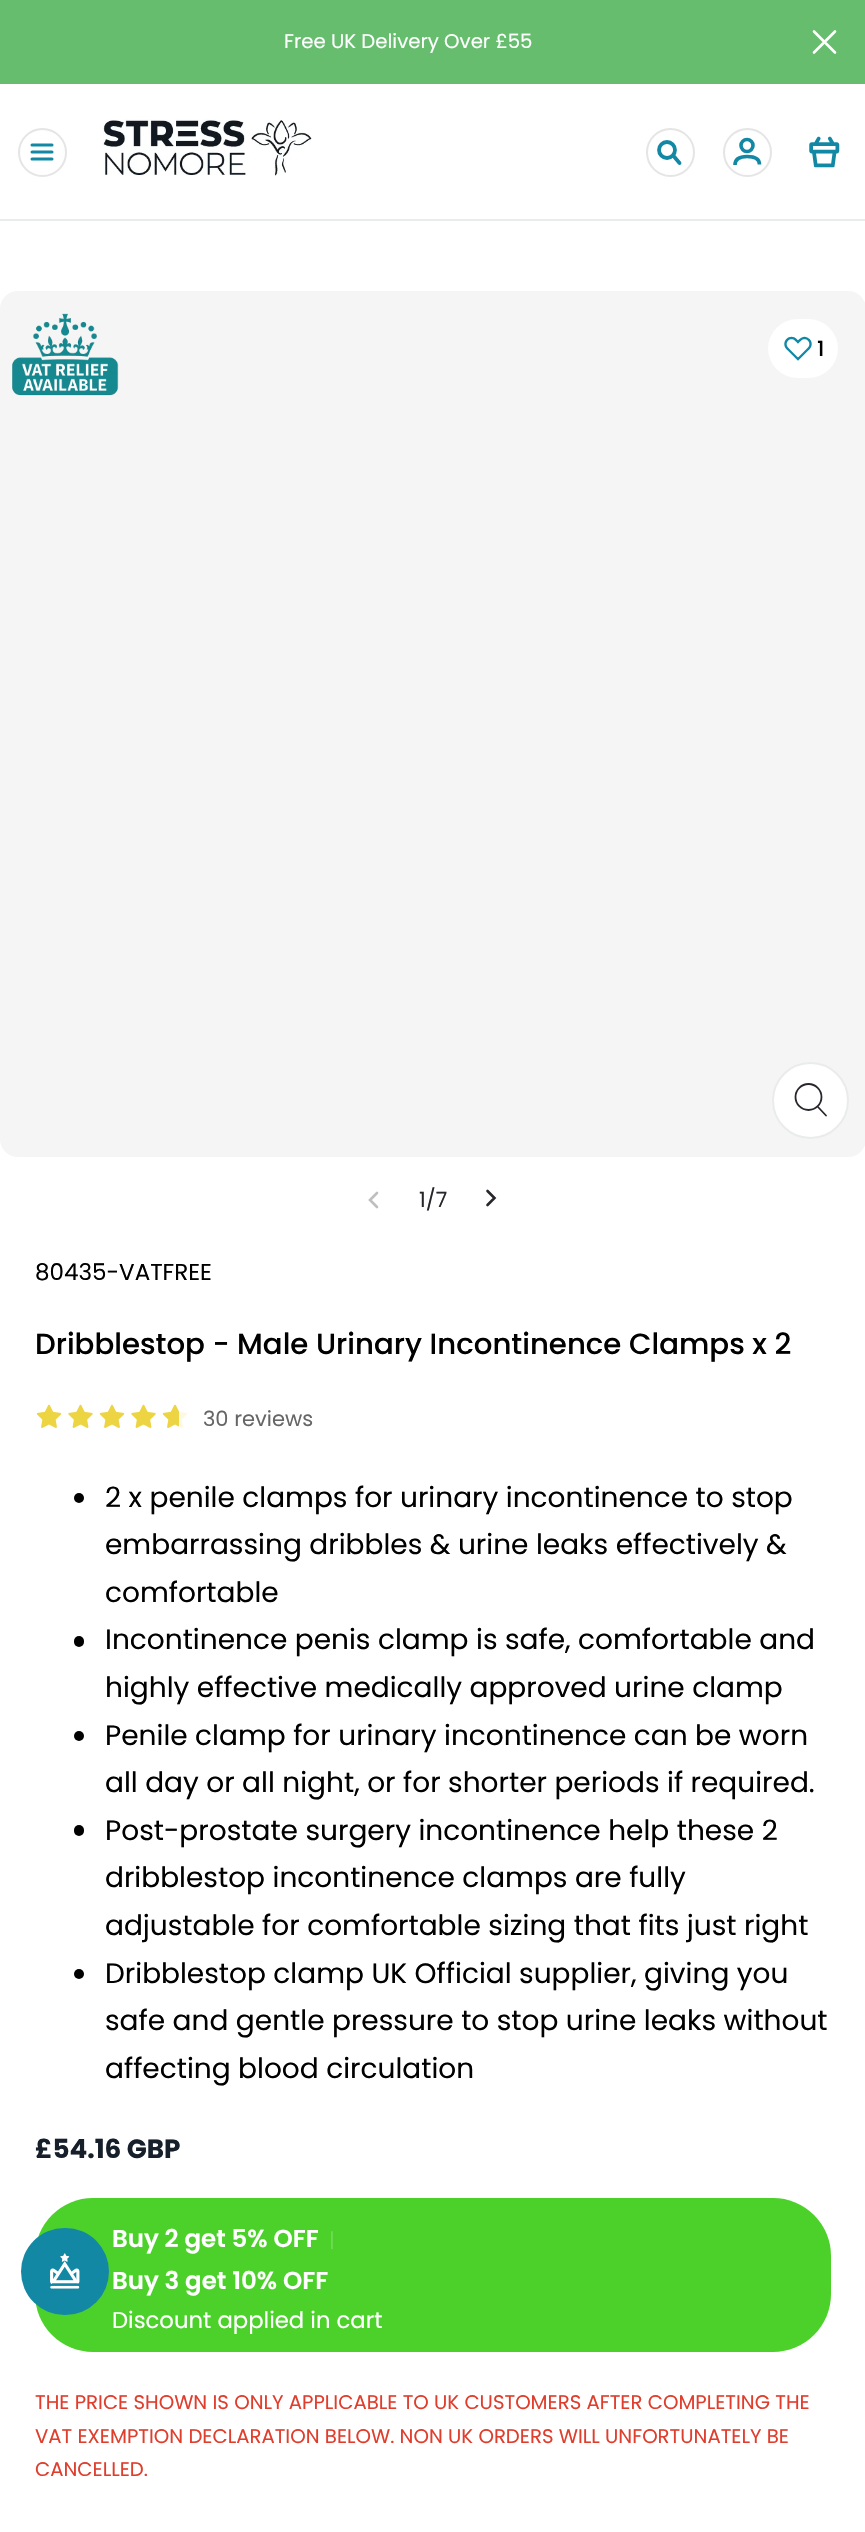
#include "include/core/SkBlurTypes.h"
#include "include/core/SkCanvas.h"
#include "include/core/SkData.h"
#include "include/core/SkFont.h"
#include "include/core/SkFontMgr.h"
#include "include/core/SkImage.h"
#include "include/core/SkMaskFilter.h"
#include "include/core/SkPaint.h"
#include "include/core/SkPathBuilder.h"
#include "include/core/SkTextBlob.h"
#include "include/effects/SkDashPathEffect.h"
#include "include/effects/SkGradientShader.h"
#include "include/utils/SkParsePath.h"

extern sk_sp<SkFontMgr> fontMgr;

void draw(SkCanvas* canvas) {
  SkPaint p;
  p.setAntiAlias(true);
  canvas->clear(SK_ColorWHITE);
  p.setColor(SkColorSetRGB(101, 189, 109));
  canvas->drawRect(SkRect::MakeLTRB(0, 0, 865, 84), p);
  p.setStyle(SkPaint::kStroke_Style);
  p.setStrokeWidth(2.6f);
  p.setStrokeCap(SkPaint::kRound_Cap);
  p.setStrokeJoin(SkPaint::kRound_Join);
  p.setColor(SK_ColorWHITE);
  canvas->drawPath(SkPathBuilder().moveTo(814, 52.5f).lineTo(835, 31.5f).moveTo(814, 31.5f).lineTo(835, 52.5f).detach(), p);
  p.setStrokeWidth(2);
  p.setStrokeCap(SkPaint::kButt_Cap);
  p.setStrokeJoin(SkPaint::kMiter_Join);
  p.setColor(SkColorSetRGB(229, 229, 229));
  canvas->drawCircle(42.5f, 152.5f, 23.5f, p);
  p.setStrokeWidth(3);
  p.setStrokeCap(SkPaint::kRound_Cap);
  p.setColor(SkColorSetRGB(18, 136, 164));
  canvas->drawPath(SkPathBuilder().moveTo(32, 145).lineTo(52, 145).moveTo(32, 152).lineTo(52, 152).moveTo(32, 159).lineTo(52, 159).detach(), p);
  canvas->drawImageRect(SkImages::DeferredFromEncodedData(SkData::MakeFromFileName("images/1.png")), SkRect::MakeLTRB(103, 119, 312, 176), SkSamplingOptions());
  p.setStrokeWidth(2);
  p.setStrokeCap(SkPaint::kButt_Cap);
  p.setColor(SkColorSetRGB(229, 229, 229));
  canvas->drawCircle(670.5f, 152.5f, 23.5f, p);
  p.setStrokeWidth(3.8f);
  p.setColor(SkColorSetRGB(18, 136, 164));
  canvas->drawCircle(667, 150, 8, p);
  p.setStrokeCap(SkPaint::kRound_Cap);
  canvas->drawPath(SkPathBuilder().moveTo(674, 156.5f).lineTo(679.5f, 163).detach(), p);
  p.setStrokeWidth(2);
  p.setStrokeCap(SkPaint::kButt_Cap);
  p.setColor(SkColorSetRGB(229, 229, 229));
  canvas->drawCircle(747.5f, 152.5f, 23.5f, p);
  p.setStrokeWidth(3.6f);
  p.setColor(SkColorSetRGB(18, 136, 164));
  canvas->drawCircle(747, 145.5f, 6, p);
  canvas->drawPath(SkPathBuilder().moveTo(759.5f, 164.5f).cubicTo(759.5f, 162.5f, 759.5f, 156.5f, 747, 156.5f).cubicTo(735, 156.5f, 735, 163, 735, 165).detach(), p);
  canvas->drawImageRect(SkImages::DeferredFromEncodedData(SkData::MakeFromFileName("images/2.png")), SkRect::MakeLTRB(809, 136, 840, 168), SkSamplingOptions());
  p.setStyle(SkPaint::kFill_Style);
  p.setColor(SkColorSetRGB(234, 236, 236));
  canvas->drawRect(SkRect::MakeLTRB(0, 219, 865, 221), p);
  p.setColor(SkColorSetRGB(245, 245, 245));
  canvas->drawRoundRect(SkRect::MakeLTRB(0, 291, 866, 1157), 18, 18, p);
  p.setColor(SK_ColorWHITE);
  canvas->drawCircle(810.5f, 1100.5f, 37.5f, p);
  p.setStyle(SkPaint::kStroke_Style);
  p.setStrokeWidth(2);
  p.setColor(SkColorSetRGB(234, 236, 236));
  canvas->drawCircle(810.5f, 1100.5f, 37.5f, p);
  p.setStrokeWidth(1.8f);
  p.setColor(SkColorSetRGB(41, 37, 44));
  canvas->drawCircle(808.5f, 1097, 13, p);
  p.setStrokeCap(SkPaint::kRound_Cap);
  canvas->drawPath(SkPathBuilder().moveTo(818, 1107).lineTo(826, 1115.5f).detach(), p);
  canvas->drawImageRect(SkImages::DeferredFromEncodedData(SkData::MakeFromFileName("images/3.png")), SkRect::MakeLTRB(12, 313, 119, 396), SkSamplingOptions());
  p.setStyle(SkPaint::kFill_Style);
  p.setColor(SK_ColorWHITE);
  canvas->drawRoundRect(SkRect::MakeLTRB(768, 319, 838, 378), 29.5f, 29.5f, p);
  canvas->drawImageRect(SkImages::DeferredFromEncodedData(SkData::MakeFromFileName("images/4.png")), SkRect::MakeLTRB(784, 336, 812, 361), SkSamplingOptions());
  p.setStyle(SkPaint::kStroke_Style);
  p.setStrokeWidth(2.6f);
  p.setColor(SkColorSetRGB(191, 190, 192));
  canvas->drawPath(SkPathBuilder().moveTo(377, 1193).lineTo(370, 1200).lineTo(377, 1207).detach(), p);
  p.setColor(SkColorSetRGB(41, 37, 44));
  canvas->drawPath(SkPathBuilder().moveTo(487.5f, 1205).lineTo(494.5f, 1198).lineTo(487.5f, 1191).detach(), p);
  canvas->drawImageRect(SkImages::DeferredFromEncodedData(SkData::MakeFromFileName("images/5.png")), SkRect::MakeLTRB(36, 1404, 62, 1428), SkSamplingOptions());
  canvas->drawImageRect(SkImages::DeferredFromEncodedData(SkData::MakeFromFileName("images/6.png")), SkRect::MakeLTRB(68, 1404, 93, 1428), SkSamplingOptions());
  canvas->drawImageRect(SkImages::DeferredFromEncodedData(SkData::MakeFromFileName("images/5.png")), SkRect::MakeLTRB(99, 1404, 125, 1428), SkSamplingOptions());
  canvas->drawImageRect(SkImages::DeferredFromEncodedData(SkData::MakeFromFileName("images/6.png")), SkRect::MakeLTRB(131, 1404, 156, 1428), SkSamplingOptions());
  canvas->drawImageRect(SkImages::DeferredFromEncodedData(SkData::MakeFromFileName("images/8.png")), SkRect::MakeLTRB(163, 1405, 187, 1428), SkSamplingOptions());
  canvas->drawImageRect(SkImages::DeferredFromEncodedData(SkData::MakeFromFileName("images/7.png")), SkRect::MakeLTRB(162, 1404, 179, 1428), SkSamplingOptions());
  p.setStyle(SkPaint::kFill_Style);
  p.setColor(SK_ColorBLACK);
  canvas->drawCircle(79, 1498, 5, p);
  canvas->drawRoundRect(SkRect::MakeLTRB(74, 1636, 84, 1647), 5, 5, p);
  canvas->drawCircle(79, 1736, 5, p);
  canvas->drawRoundRect(SkRect::MakeLTRB(74, 1825, 84, 1836), 5, 5, p);
  canvas->drawCircle(79, 1974, 5, p);
  p.setColor(SkColorSetRGB(75, 209, 41));
  canvas->drawRoundRect(SkRect::MakeLTRB(35, 2198, 831, 2352), 58, 58, p);
  p.setColor(SkColorSetRGB(18, 136, 164));
  canvas->drawRoundRect(SkRect::MakeLTRB(21, 2228, 109, 2315), 43.5f, 43.5f, p);
  canvas->drawImageRect(SkImages::DeferredFromEncodedData(SkData::MakeFromFileName("images/9.png")), SkRect::MakeLTRB(50, 2253, 80, 2289), SkSamplingOptions());
  SkFont font1(fontMgr->matchFamilyStyle("Poppins", SkFontStyle::Normal()), 19.7f);
  font1.setSubpixel(true);
  p.setColor(SK_ColorWHITE);
  canvas->drawString("Free UK Delivery Over £55", 284, 48, font1, p);
  SkFont font2(fontMgr->matchFamilyStyle("Poppins", SkFontStyle(500, SkFontStyle::kNormal_Width, SkFontStyle::kUpright_Slant)), 21);
  font2.setSubpixel(true);
  p.setColor(SK_ColorBLACK);
  canvas->drawString("1", 817, 356, font2, p);
  SkFont font3(fontMgr->matchFamilyStyle("Poppins", SkFontStyle::Normal()), 21);
  font3.setSubpixel(true);
  p.setColor(SkColorSetRGB(41, 37, 44));
  canvas->drawString("1/7", 419, 1207, font3, p);
  SkFont font4(fontMgr->matchFamilyStyle("Poppins", SkFontStyle::Normal()), 23);
  font4.setSubpixel(true);
  p.setColor(SK_ColorBLACK);
  canvas->drawString("80435-VATFREE", 35, 1280, font4, p);
  SkFont font5(fontMgr->matchFamilyStyle("Poppins", SkFontStyle(500, SkFontStyle::kNormal_Width, SkFontStyle::kUpright_Slant)), 29.2f);
  font5.setSubpixel(true);
  canvas->drawString("Dribblestop - Male Urinary Incontinence Clamps x 2", 35, 1354, font5, p);
  p.setColor(SkColorSetRGB(102, 102, 102));
  canvas->drawString("30 reviews", 203, 1426, font3, p);
  SkFont font6(fontMgr->matchFamilyStyle("Poppins", SkFontStyle::Normal()), 28);
  font6.setSubpixel(true);
  p.setColor(SK_ColorBLACK);
  canvas->drawString("2 x penile clamps for urinary incontinence to stop", 105, 1507, font6, p);
  canvas->drawString("embarrassing dribbles & urine leaks effectively &", 105, 1554, font6, p);
  canvas->drawString("comfortable", 105, 1602, font6, p);
  canvas->drawString("Incontinence penis clamp is safe, comfortable and", 105, 1649, font6, p);
  canvas->drawString("highly effective medically approved urine clamp", 105, 1697, font6, p);
  canvas->drawString("Penile clamp for urinary incontinence can be worn", 105, 1745, font6, p);
  canvas->drawString("all day or all night, or for shorter periods if required.", 105, 1792, font6, p);
  canvas->drawString("Post-prostate surgery incontinence help these 2", 105, 1840, font6, p);
  canvas->drawString("dribblestop incontinence clamps are fully", 105, 1887, font6, p);
  canvas->drawString("adjustable for comfortable sizing that fits just right", 105, 1935, font6, p);
  canvas->drawString("Dribblestop clamp UK Official supplier, giving you", 105, 1983, font6, p);
  canvas->drawString("safe and gentle pressure to stop urine leaks without", 105, 2030, font6, p);
  canvas->drawString("affecting blood circulation", 105, 2078, font6, p);
  SkFont font7(fontMgr->matchFamilyStyle("Poppins", SkFontStyle::Bold()), 26.25f);
  font7.setSubpixel(true);
  p.setColor(SkColorSetRGB(23, 31, 43));
  canvas->drawString("£54.16 GBP", 35, 2158, font7, p);
  SkFont font8(fontMgr->matchFamilyStyle("Poppins", SkFontStyle(600, SkFontStyle::kNormal_Width, SkFontStyle::kUpright_Slant)), 24.5f);
  font8.setSubpixel(true);
  p.setColor(SK_ColorWHITE);
  canvas->drawString("Buy 2 get 5% OFF", 112, 2247, font8, p);
  p.setColor(SkColorSetRGB(111, 218, 84));
  canvas->drawString("|", 329, 2247, font1, p);
  p.setColor(SK_ColorWHITE);
  canvas->drawString("Buy 3 get 10% OFF", 112, 2289, font8, p);
  SkFont font9(fontMgr->matchFamilyStyle("Poppins", SkFontStyle::Normal()), 22.75f);
  font9.setSubpixel(true);
  canvas->drawString("Discount applied in cart", 112, 2328, font9, p);
  p.setColor(SkColorSetRGB(224, 62, 45));
  canvas->drawString("THE PRICE SHOWN IS ONLY APPLICABLE TO UK CUSTOMERS AFTER COMPLETING THE", 35, 2409, font1, p);
  canvas->drawString("VAT EXEMPTION DECLARATION BELOW. NON UK ORDERS WILL UNFORTUNATELY BE", 35, 2443, font1, p);
  canvas->drawString("CANCELLED.", 35, 2476, font1, p);
}
